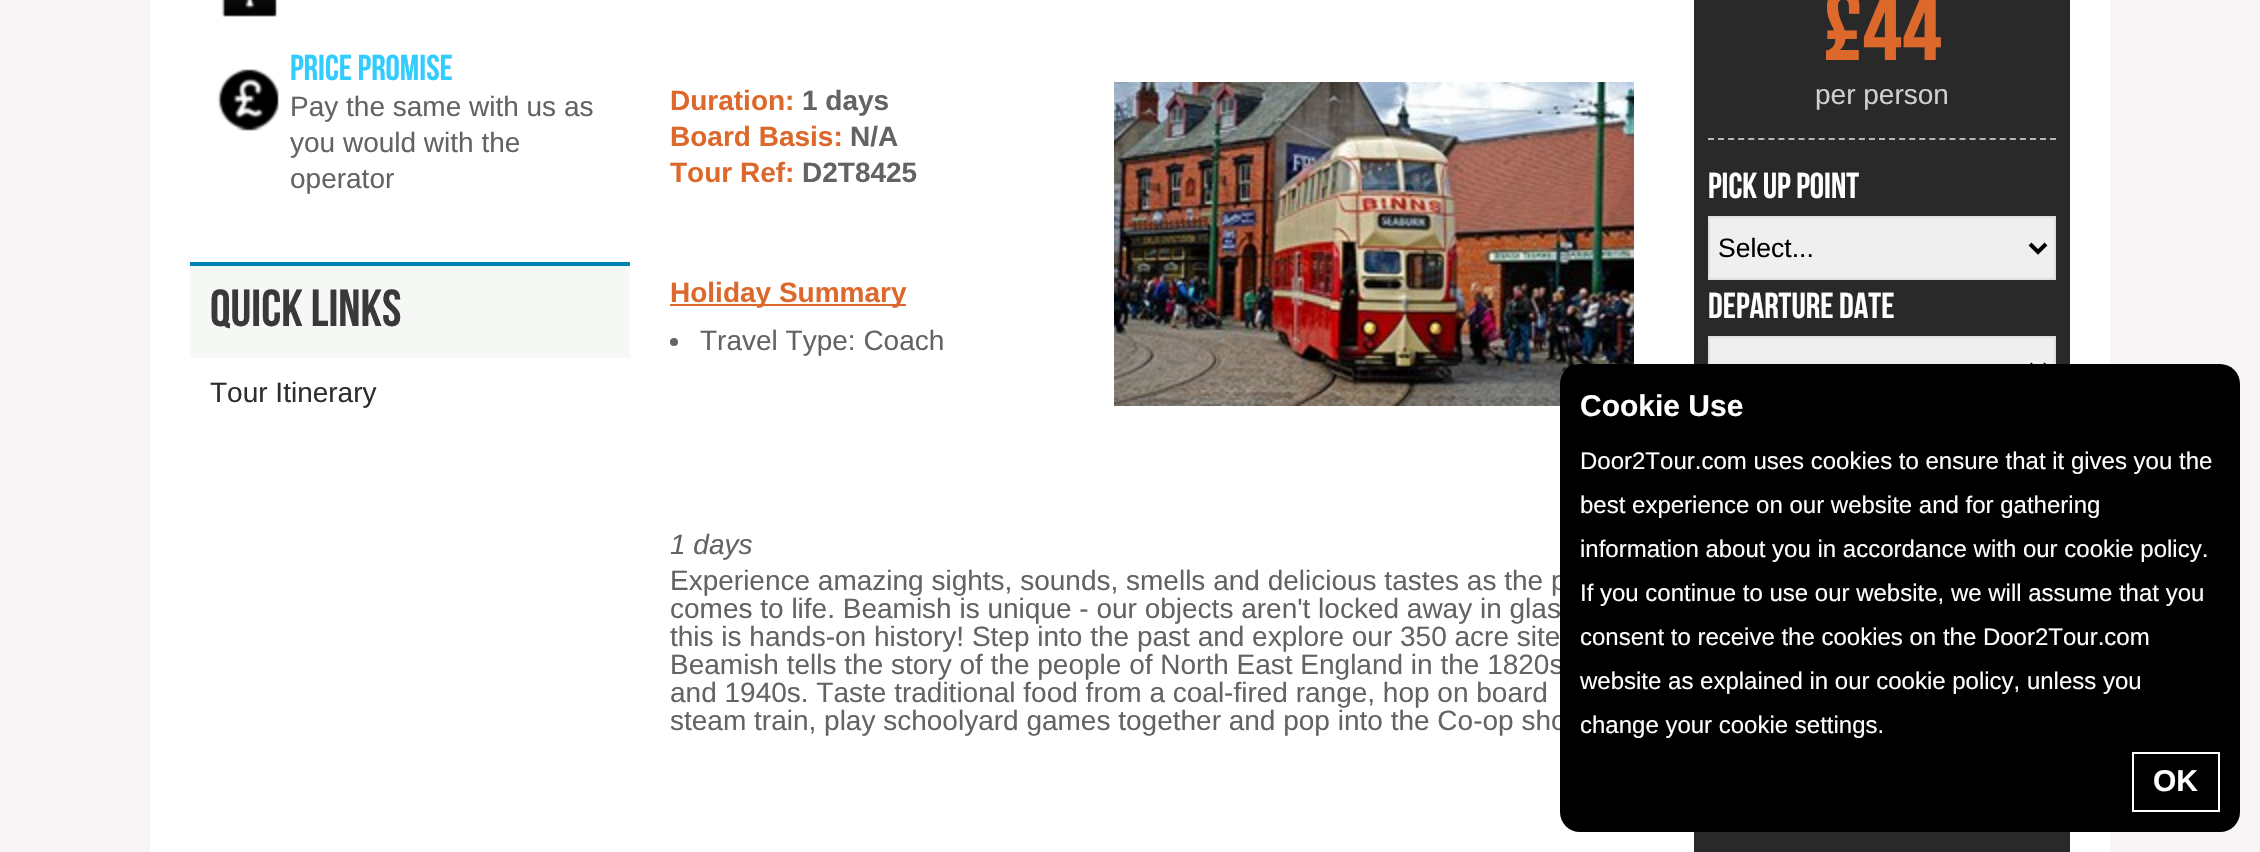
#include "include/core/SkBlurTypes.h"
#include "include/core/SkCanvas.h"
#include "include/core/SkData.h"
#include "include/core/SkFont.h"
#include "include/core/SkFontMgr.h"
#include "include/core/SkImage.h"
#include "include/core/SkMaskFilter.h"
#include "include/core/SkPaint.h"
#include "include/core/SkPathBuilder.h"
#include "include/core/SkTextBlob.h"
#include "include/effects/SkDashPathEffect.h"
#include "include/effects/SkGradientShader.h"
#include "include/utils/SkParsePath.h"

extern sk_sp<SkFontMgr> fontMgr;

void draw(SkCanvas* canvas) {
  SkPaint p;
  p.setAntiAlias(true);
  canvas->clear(SkColorSetRGB(247, 245, 245));
  p.setColor(SK_ColorWHITE);
  canvas->drawRect(SkRect::MakeLTRB(150, 0, 2110, 852), p);
  canvas->drawImageRect(SkImages::DeferredFromEncodedData(SkData::MakeFromFileName("images/1.png")), SkRect::MakeLTRB(221, 0, 277, 17), SkSamplingOptions());
  canvas->drawImageRect(SkImages::DeferredFromEncodedData(SkData::MakeFromFileName("images/2.png")), SkRect::MakeLTRB(217, 69, 279, 131), SkSamplingOptions());
  p.setColor(SkColorSetRGB(246, 248, 246));
  canvas->drawRect(SkRect::MakeLTRB(190, 266, 630, 358), p);
  p.setColor(SkColorSetRGB(0, 131, 174));
  canvas->drawRect(SkRect::MakeLTRB(190, 262, 630, 266), p);
  p.setColor(SkColorSetRGB(220, 105, 43));
  canvas->drawRect(SkRect::MakeLTRB(670, 304, 906, 306), p);
  p.setColor(SkColorSetRGB(99, 99, 99));
  canvas->drawCircle(674, 342, 4, p);
  canvas->drawImageRect(SkImages::DeferredFromEncodedData(SkData::MakeFromFileName("images/3.png")), SkRect::MakeLTRB(1114, 82, 1634, 406), SkSamplingOptions());
  p.setColor(SkColorSetRGB(41, 41, 41));
  canvas->drawRect(SkRect::MakeLTRB(1694, 0, 2070, 852), p);
  p.setStyle(SkPaint::kStroke_Style);
  p.setStrokeWidth(2);
  p.setColor(SkColorSetRGB(183, 183, 183));
  p.setPathEffect(SkDashPathEffect::Make({{6, 4.06f}}, 0));
  canvas->drawPath(SkPathBuilder().moveTo(1708, 139).lineTo(2056, 139).detach(), p);
  p.setPathEffect(nullptr);
  p.setStyle(SkPaint::kFill_Style);
  p.setColor(SkColorSetRGB(239, 239, 239));
  canvas->drawRect(SkRect::MakeLTRB(1709, 217, 2055, 279), p);
  p.setStyle(SkPaint::kStroke_Style);
  p.setColor(SkColorSetRGB(224, 223, 222));
  canvas->drawRect(SkRect::MakeLTRB(1709, 217, 2055, 279), p);
  p.setStrokeWidth(4);
  p.setColor(SK_ColorBLACK);
  canvas->drawPath(SkPathBuilder().moveTo(2030, 244).lineTo(2038, 252).lineTo(2046, 244).detach(), p);
  p.setStyle(SkPaint::kFill_Style);
  p.setColor(SkColorSetRGB(239, 239, 239));
  canvas->drawRect(SkRect::MakeLTRB(1710, 338, 2054, 364), p);
  p.setStyle(SkPaint::kStroke_Style);
  p.setStrokeWidth(2);
  p.setColor(SkColorSetRGB(224, 223, 222));
  canvas->drawRect(SkRect::MakeLTRB(1709, 337, 2055, 399), p);
  p.setStrokeWidth(4);
  p.setColor(SK_ColorBLACK);
  canvas->drawPath(SkPathBuilder().moveTo(2030, 364).lineTo(2038, 372).lineTo(2046, 364).detach(), p);
  SkFont font1(fontMgr->matchFamilyStyle("Bebas Neue", SkFontStyle::Normal()), 36);
  font1.setSubpixel(true);
  p.setStyle(SkPaint::kFill_Style);
  p.setColor(SkColorSetRGB(51, 204, 255));
  canvas->drawString("Price promise", 290, 80, font1, p);
  SkFont font2(fontMgr->matchFamilyStyle("Liberation Sans", SkFontStyle::Normal()), 28);
  font2.setSubpixel(true);
  p.setColor(SkColorSetRGB(99, 99, 99));
  canvas->drawString("Pay the same with us as", 290, 116, font2, p);
  canvas->drawString("you would with the", 290, 152, font2, p);
  canvas->drawString("operator", 290, 188, font2, p);
  SkFont font3(fontMgr->matchFamilyStyle("Bebas Neue", SkFontStyle::Normal()), 52);
  font3.setSubpixel(true);
  p.setColor(SkColorSetRGB(58, 57, 57));
  canvas->drawString("quick links", 210, 326, font3, p);
  p.setColor(SkColorSetRGB(45, 45, 45));
  canvas->drawString("Tour Itinerary", 210, 402, font2, p);
  SkFont font4(fontMgr->matchFamilyStyle("Liberation Sans", SkFontStyle::Bold()), 28);
  font4.setSubpixel(true);
  p.setColor(SkColorSetRGB(220, 105, 43));
  canvas->drawString("Duration:", 670, 110, font4, p);
  p.setColor(SkColorSetRGB(99, 99, 99));
  canvas->drawString("1 days", 802, 110, font4, p);
  p.setColor(SkColorSetRGB(220, 105, 43));
  canvas->drawString("Board Basis:", 670, 146, font4, p);
  p.setColor(SkColorSetRGB(99, 99, 99));
  canvas->drawString("N/A", 850, 146, font4, p);
  p.setColor(SkColorSetRGB(220, 105, 43));
  canvas->drawString("Tour Ref:", 670, 182, font4, p);
  p.setColor(SkColorSetRGB(99, 99, 99));
  canvas->drawString("D2T8425", 802, 182, font4, p);
  p.setColor(SkColorSetRGB(220, 105, 43));
  canvas->drawString("Holiday Summary", 670, 302, font4, p);
  p.setColor(SkColorSetRGB(99, 99, 99));
  canvas->drawString("Travel Type: Coach", 700, 350, font2, p);
  SkFont font5(fontMgr->matchFamilyStyle("Liberation Sans", SkFontStyle::Italic()), 28);
  font5.setSubpixel(true);
  canvas->drawString("1 days", 670, 554, font5, p);
  canvas->drawString("Experience amazing sights, sounds, smells and delicious tastes as the p", 670, 590, font2, p);
  canvas->drawString("comes to life. Beamish is unique - our objects aren't locked away in glas", 670, 618, font2, p);
  canvas->drawString("this is hands-on history! Step into the past and explore our 350 acre site", 670, 646, font2, p);
  canvas->drawString("Beamish tells the story of the people of North East England in the 1820s", 670, 674, font2, p);
  canvas->drawString("and 1940s. Taste traditional food from a coal-fired range, hop on board", 670, 702, font2, p);
  canvas->drawString("steam train, play schoolyard games together and pop into the Co-op sho", 670, 730, font2, p);
  SkFont font6(fontMgr->matchFamilyStyle("Bebas Neue", SkFontStyle::Normal()), 100);
  font6.setSubpixel(true);
  p.setColor(SkColorSetRGB(220, 105, 43));
  canvas->drawString("£44", 1823, 60, font6, p);
  p.setColor(SkColorSetRGB(207, 207, 207));
  canvas->drawString("per person", 1815, 104, font2, p);
  p.setColor(SK_ColorWHITE);
  canvas->drawString("pick up point", 1708, 198, font1, p);
  SkFont font7(fontMgr->matchFamilyStyle("Liberation Sans", SkFontStyle::Normal()), 26.5f);
  font7.setSubpixel(true);
  p.setColor(SK_ColorBLACK);
  canvas->drawString("Select...", 1718, 257, font7, p);
  p.setColor(SK_ColorWHITE);
  canvas->drawString("departure date", 1708, 318, font1, p);
  p.setColor(SK_ColorBLACK);
  canvas->drawRoundRect(SkRect::MakeLTRB(1560, 364, 2240, 832), 20, 20, p);
  SkFont font8(fontMgr->matchFamilyStyle("Liberation Sans", SkFontStyle::Bold()), 30);
  font8.setSubpixel(true);
  p.setColor(SK_ColorWHITE);
  canvas->drawString("Cookie Use", 1580, 416, font8, p);
  SkFont font9(fontMgr->matchFamilyStyle("Liberation Sans", SkFontStyle::Normal()), 24);
  font9.setSubpixel(true);
  canvas->drawString("Door2Tour.com uses cookies to ensure that it gives you the", 1580, 469, font9, p);
  canvas->drawString("best experience on our website and for gathering", 1580, 513, font9, p);
  canvas->drawString("information about you in accordance with our cookie policy.", 1580, 557, font9, p);
  canvas->drawString("If you continue to use our website, we will assume that you", 1580, 601, font9, p);
  canvas->drawString("consent to receive the cookies on the Door2Tour.com", 1580, 645, font9, p);
  canvas->drawString("website as explained in our cookie policy, unless you", 1580, 689, font9, p);
  canvas->drawString("change your cookie settings.", 1580, 733, font9, p);
  p.setStyle(SkPaint::kStroke_Style);
  p.setStrokeWidth(2);
  canvas->drawRect(SkRect::MakeLTRB(2133, 753, 2219, 811), p);
  p.setStyle(SkPaint::kFill_Style);
  canvas->drawString("OK", 2153, 791, font8, p);
}
